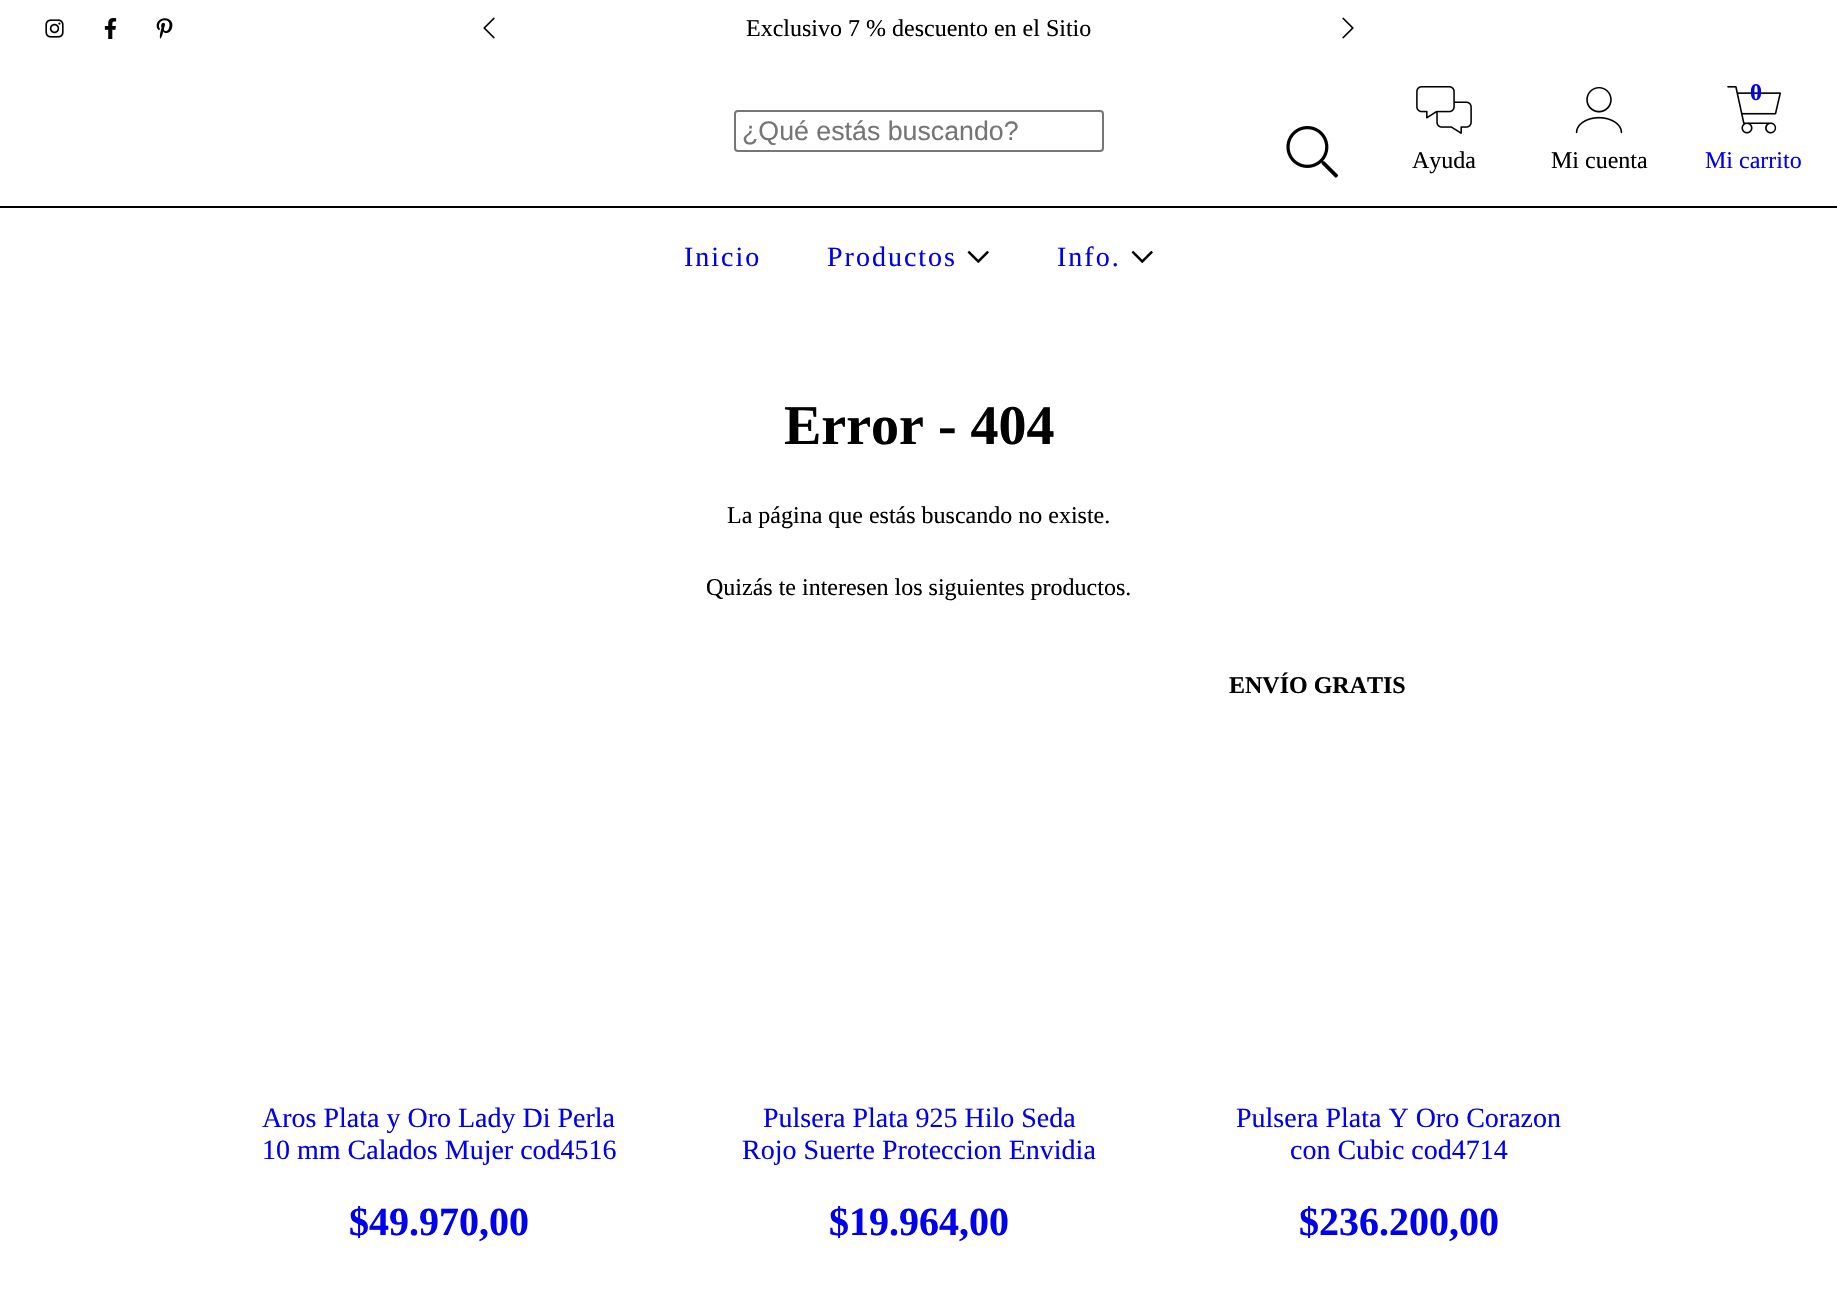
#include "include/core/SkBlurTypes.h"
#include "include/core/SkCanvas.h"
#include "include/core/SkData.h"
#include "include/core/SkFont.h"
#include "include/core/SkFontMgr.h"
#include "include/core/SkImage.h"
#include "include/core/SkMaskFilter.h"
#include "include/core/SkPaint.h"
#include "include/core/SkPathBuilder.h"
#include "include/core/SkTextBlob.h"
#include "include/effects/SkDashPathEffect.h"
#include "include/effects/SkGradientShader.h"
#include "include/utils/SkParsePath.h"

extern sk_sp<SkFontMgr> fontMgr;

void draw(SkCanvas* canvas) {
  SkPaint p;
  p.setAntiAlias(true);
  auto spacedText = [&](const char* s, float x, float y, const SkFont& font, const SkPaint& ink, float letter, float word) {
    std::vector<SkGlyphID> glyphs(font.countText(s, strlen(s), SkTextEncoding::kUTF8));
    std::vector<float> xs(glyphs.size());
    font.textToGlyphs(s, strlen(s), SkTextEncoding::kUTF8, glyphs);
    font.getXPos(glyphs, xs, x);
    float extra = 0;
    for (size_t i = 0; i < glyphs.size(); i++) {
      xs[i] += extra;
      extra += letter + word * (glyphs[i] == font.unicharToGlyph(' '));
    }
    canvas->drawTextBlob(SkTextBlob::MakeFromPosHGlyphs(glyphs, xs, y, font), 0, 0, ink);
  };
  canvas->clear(SK_ColorWHITE);
  canvas->drawImageRect(SkImages::DeferredFromEncodedData(SkData::MakeFromFileName("images/1.png")), SkRect::MakeLTRB(45, 19, 64, 38), SkSamplingOptions());
  canvas->drawImageRect(SkImages::DeferredFromEncodedData(SkData::MakeFromFileName("images/2.png")), SkRect::MakeLTRB(104, 18, 117, 39), SkSamplingOptions());
  canvas->drawImageRect(SkImages::DeferredFromEncodedData(SkData::MakeFromFileName("images/3.png")), SkRect::MakeLTRB(156, 18, 173, 39), SkSamplingOptions());
  canvas->drawImageRect(SkImages::DeferredFromEncodedData(SkData::MakeFromFileName("images/4.png")), SkRect::MakeLTRB(483, 17, 495, 39), SkSamplingOptions());
  canvas->drawImageRect(SkImages::DeferredFromEncodedData(SkData::MakeFromFileName("images/5.png")), SkRect::MakeLTRB(1342, 17, 1354, 39), SkSamplingOptions());
  p.setStyle(SkPaint::kStroke_Style);
  p.setStrokeWidth(2);
  p.setColor(SkColorSetRGB(118, 118, 118));
  canvas->drawRoundRect(SkRect::MakeLTRB(735, 111, 1103, 151), 3, 3, p);
  canvas->drawImageRect(SkImages::DeferredFromEncodedData(SkData::MakeFromFileName("images/6.png")), SkRect::MakeLTRB(1286, 126, 1338, 178), SkSamplingOptions());
  canvas->drawImageRect(SkImages::DeferredFromEncodedData(SkData::MakeFromFileName("images/7.png")), SkRect::MakeLTRB(1416, 86, 1472, 134), SkSamplingOptions());
  canvas->drawImageRect(SkImages::DeferredFromEncodedData(SkData::MakeFromFileName("images/8.png")), SkRect::MakeLTRB(1575, 87, 1623, 134), SkSamplingOptions());
  canvas->drawImageRect(SkImages::DeferredFromEncodedData(SkData::MakeFromFileName("images/9.png")), SkRect::MakeLTRB(1727, 86, 1781, 134), SkSamplingOptions());
  p.setStyle(SkPaint::kFill_Style);
  p.setColor(SK_ColorBLACK);
  canvas->drawRect(SkRect::MakeLTRB(0, 206, 1837, 208), p);
  canvas->drawImageRect(SkImages::DeferredFromEncodedData(SkData::MakeFromFileName("images/10.png")), SkRect::MakeLTRB(967, 250, 989, 263), SkSamplingOptions());
  canvas->drawImageRect(SkImages::DeferredFromEncodedData(SkData::MakeFromFileName("images/10.png")), SkRect::MakeLTRB(1131, 250, 1153, 263), SkSamplingOptions());
  SkFont font1(fontMgr->matchFamilyStyle("Liberation Serif", SkFontStyle::Normal()), 24);
  font1.setSubpixel(true);
  canvas->drawString("Exclusivo 7 % descuento en el Sitio", 746, 36, font1, p);
  SkFont font2(fontMgr->matchFamilyStyle("Liberation Sans", SkFontStyle::Normal()), 26.75f);
  font2.setSubpixel(true);
  p.setColor(SkColorSetRGB(117, 117, 117));
  canvas->drawString("¿Qué estás buscando?", 742, 140, font2, p);
  p.setColor(SK_ColorBLACK);
  canvas->drawString("Ayuda", 1412, 168, font1, p);
  canvas->drawString("Mi cuenta", 1551, 168, font1, p);
  SkFont font3(fontMgr->matchFamilyStyle("Liberation Serif", SkFontStyle::Bold()), 24);
  font3.setSubpixel(true);
  p.setColor(SkColorSetRGB(0, 0, 238));
  canvas->drawString("0", 1750, 100, font3, p);
  canvas->drawString("Mi carrito", 1705, 168, font1, p);
  SkFont font4(fontMgr->matchFamilyStyle("Liberation Serif", SkFontStyle::Normal()), 28);
  font4.setSubpixel(true);
  spacedText("Inicio", 684, 266, font4, p, 2, 0);
  spacedText("Productos", 827, 266, font4, p, 2, 0);
  spacedText("Info.", 1057, 266, font4, p, 2, 0);
  SkFont font5(fontMgr->matchFamilyStyle("Liberation Serif", SkFontStyle::Bold()), 56);
  font5.setSubpixel(true);
  p.setColor(SK_ColorBLACK);
  canvas->drawString("Error - 404", 784, 444, font5, p);
  canvas->drawString("La página que estás buscando no existe.", 727, 523, font1, p);
  canvas->drawString("Quizás te interesen los siguientes productos.", 706, 595, font1, p);
  p.setColor(SkColorSetRGB(0, 0, 238));
  canvas->drawString("Aros Plata y Oro Lady Di Perla", 262, 1127, font4, p);
  canvas->drawString("10 mm Calados Mujer cod4516", 262, 1159, font4, p);
  SkFont font6(fontMgr->matchFamilyStyle("Liberation Serif", SkFontStyle::Bold()), 40);
  font6.setSubpixel(true);
  canvas->drawString("$49.970,00", 349, 1235, font6, p);
  canvas->drawString("Pulsera Plata 925 Hilo Seda", 763, 1127, font4, p);
  canvas->drawString("Rojo Suerte Proteccion Envidia", 742, 1159, font4, p);
  canvas->drawString("$19.964,00", 829, 1235, font6, p);
  p.setColor(SK_ColorBLACK);
  canvas->drawString("ENVÍO GRATIS", 1229, 693, font3, p);
  p.setColor(SkColorSetRGB(0, 0, 238));
  canvas->drawString("Pulsera Plata Y Oro Corazon", 1236, 1127, font4, p);
  canvas->drawString("con Cubic cod4714", 1290, 1159, font4, p);
  canvas->drawString("$236.200,00", 1299, 1235, font6, p);
}
